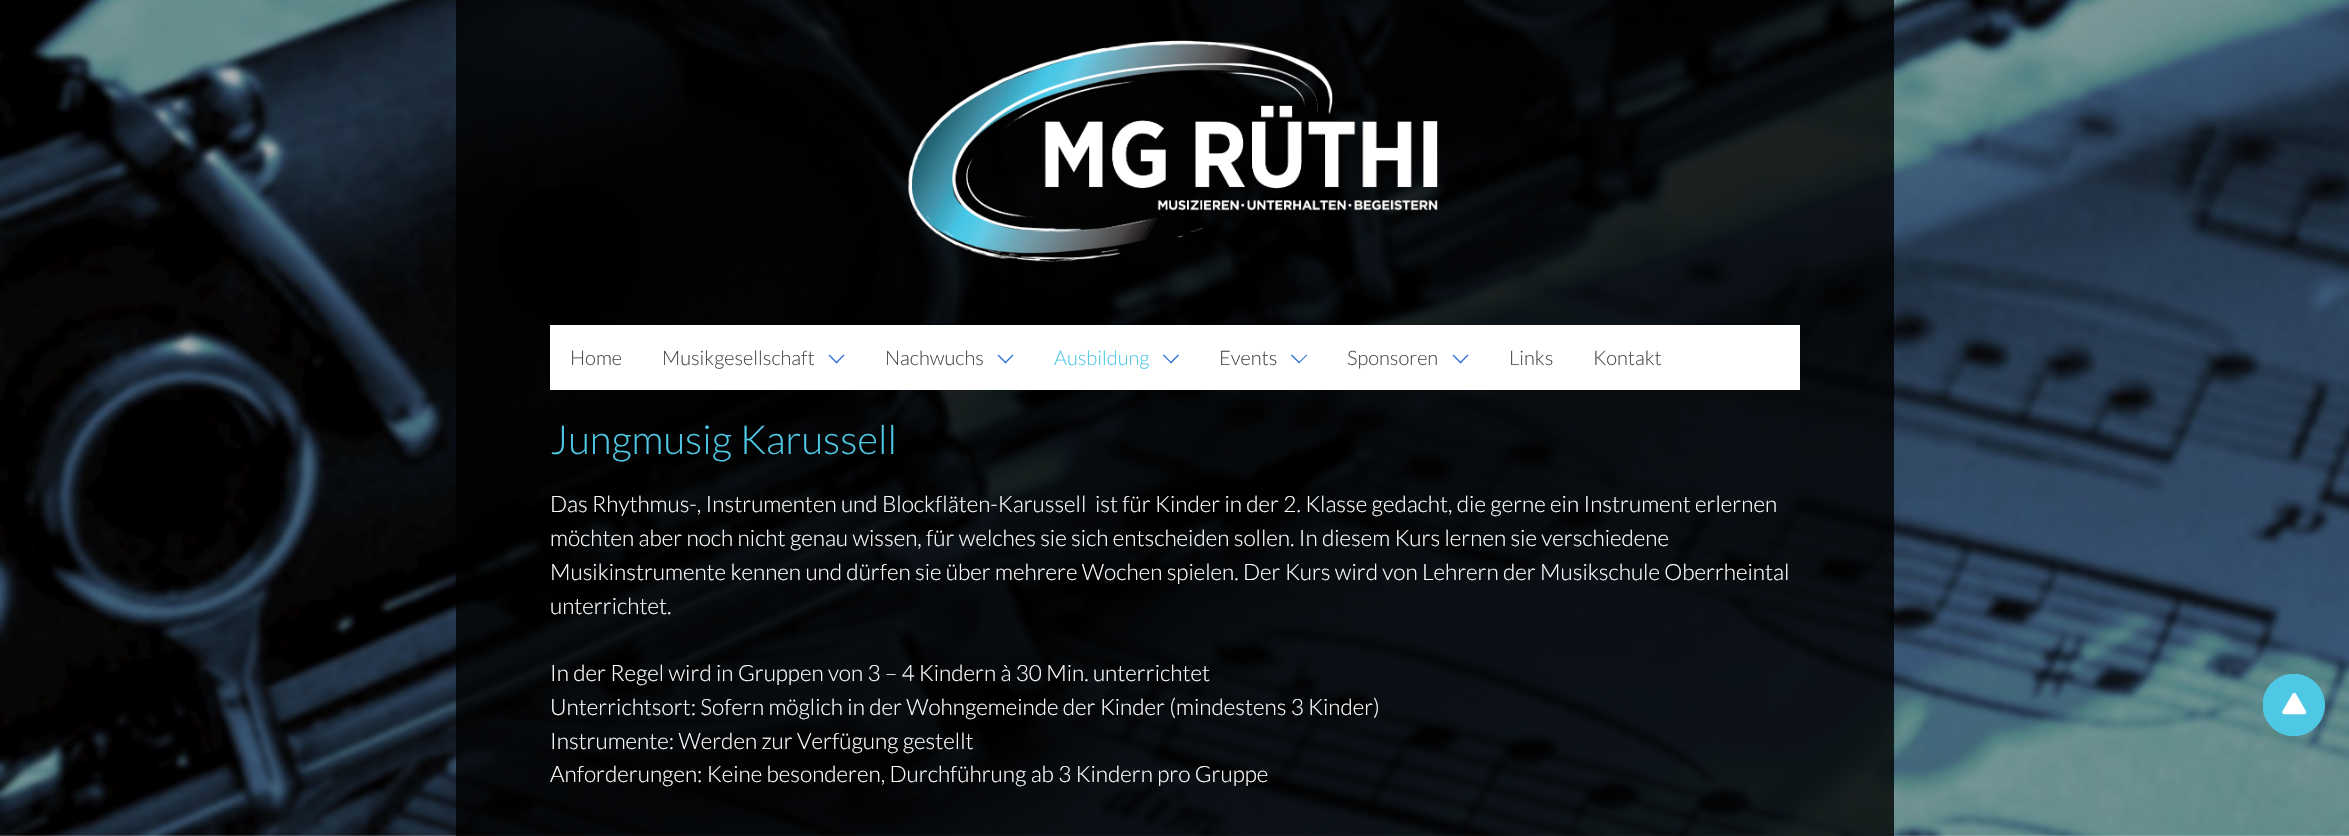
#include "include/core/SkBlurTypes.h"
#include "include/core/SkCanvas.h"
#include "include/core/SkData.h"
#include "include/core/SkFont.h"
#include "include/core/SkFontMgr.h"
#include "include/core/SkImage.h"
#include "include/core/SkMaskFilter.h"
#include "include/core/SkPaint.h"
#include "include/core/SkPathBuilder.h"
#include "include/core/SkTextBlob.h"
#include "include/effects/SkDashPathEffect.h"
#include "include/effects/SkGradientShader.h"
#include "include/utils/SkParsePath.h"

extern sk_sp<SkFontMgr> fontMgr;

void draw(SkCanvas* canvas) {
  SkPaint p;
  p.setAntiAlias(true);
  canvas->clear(SK_ColorWHITE);
  canvas->drawImageRect(SkImages::DeferredFromEncodedData(SkData::MakeFromFileName("images/1.png")), SkRect::MakeLTRB(0, 0, 2349, 836), SkSamplingOptions());
  p.setColor(SkColorSetARGB(204, 0, 0, 0));
  canvas->drawRect(SkRect::MakeLTRB(456, 0, 1894, 836), p);
  canvas->drawImageRect(SkImages::DeferredFromEncodedData(SkData::MakeFromFileName("images/2.png")), SkRect::MakeLTRB(908, 40, 1438, 262), SkSamplingOptions());
  p.setColor(SK_ColorWHITE);
  canvas->drawRect(SkRect::MakeLTRB(550, 325, 1800, 390), p);
  p.setColor(SkColorSetRGB(50, 115, 220));
  canvas->drawPath(SkPathBuilder().moveTo(835.5f, 362.5f).lineTo(843.5f, 354.5f).lineTo(844.5f, 355.5f).lineTo(836.5f, 363.5f).close().detach(), p);
  canvas->drawPath(SkPathBuilder().moveTo(828.5f, 355.5f).lineTo(829.5f, 354.5f).lineTo(837.5f, 362.5f).lineTo(836.5f, 363.5f).close().detach(), p);
  canvas->drawPath(SkPathBuilder().moveTo(1004.5f, 362.5f).lineTo(1012.5f, 354.5f).lineTo(1013.5f, 355.5f).lineTo(1005.5f, 363.5f).close().detach(), p);
  canvas->drawPath(SkPathBuilder().moveTo(997.5f, 355.5f).lineTo(998.5f, 354.5f).lineTo(1006.5f, 362.5f).lineTo(1005.5f, 363.5f).close().detach(), p);
  canvas->drawPath(SkPathBuilder().moveTo(1170, 362.5f).lineTo(1178, 354.5f).lineTo(1179, 355.5f).lineTo(1171, 363.5f).close().detach(), p);
  canvas->drawPath(SkPathBuilder().moveTo(1163, 355.5f).lineTo(1164, 354.5f).lineTo(1171.5f, 362.5f).lineTo(1171, 363.5f).close().detach(), p);
  canvas->drawPath(SkPathBuilder().moveTo(1298.5f, 362.5f).lineTo(1306.5f, 354.5f).lineTo(1307, 355.5f).lineTo(1299, 363.5f).close().detach(), p);
  canvas->drawPath(SkPathBuilder().moveTo(1291, 355.5f).lineTo(1292, 354.5f).lineTo(1300, 362.5f).lineTo(1299, 363.5f).close().detach(), p);
  canvas->drawPath(SkPathBuilder().moveTo(1459.5f, 362.5f).lineTo(1467.5f, 354.5f).lineTo(1468.5f, 355.5f).lineTo(1460.5f, 363.5f).close().detach(), p);
  canvas->drawPath(SkPathBuilder().moveTo(1452.5f, 355.5f).lineTo(1453.5f, 354.5f).lineTo(1461.5f, 362.5f).lineTo(1460.5f, 363.5f).close().detach(), p);
  canvas->drawImageRect(SkImages::DeferredFromEncodedData(SkData::MakeFromFileName("images/3.png")), SkRect::MakeLTRB(2263, 674, 2325, 736), SkSamplingOptions());
  SkFont font1(fontMgr->matchFamilyStyle("Lato", SkFontStyle(300, SkFontStyle::kNormal_Width, SkFontStyle::kUpright_Slant)), 20);
  font1.setSubpixel(true);
  p.setColor(SkColorSetRGB(74, 74, 74));
  canvas->drawString("Home", 570, 365, font1, p);
  canvas->drawString("Musikgesellschaft", 662, 365, font1, p);
  canvas->drawString("Nachwuchs", 885, 365, font1, p);
  p.setColor(SkColorSetRGB(79, 200, 230));
  canvas->drawString("Ausbildung", 1054, 365, font1, p);
  p.setColor(SkColorSetRGB(74, 74, 74));
  canvas->drawString("Events", 1219, 365, font1, p);
  canvas->drawString("Sponsoren", 1347, 365, font1, p);
  canvas->drawString("Links", 1509, 365, font1, p);
  canvas->drawString("Kontakt", 1593, 365, font1, p);
  SkFont font2(fontMgr->matchFamilyStyle("Lato", SkFontStyle(300, SkFontStyle::kNormal_Width, SkFontStyle::kUpright_Slant)), 40);
  font2.setSubpixel(true);
  p.setColor(SkColorSetRGB(79, 200, 230));
  canvas->drawString("Jungmusig Karussell", 550, 454, font2, p);
  SkFont font3(fontMgr->matchFamilyStyle("Lato", SkFontStyle(300, SkFontStyle::kNormal_Width, SkFontStyle::kUpright_Slant)), 22.5f);
  font3.setSubpixel(true);
  p.setColor(SK_ColorWHITE);
  canvas->drawString("Das Rhythmus-, Instrumenten und Blockfläten-Karussell  ist für Kinder in der 2. Klasse gedacht, die gerne ein Instrument erlernen", 550, 512, font3, p);
  canvas->drawString("möchten aber noch nicht genau wissen, für welches sie sich entscheiden sollen. In diesem Kurs lernen sie verschiedene", 550, 546, font3, p);
  canvas->drawString("Musikinstrumente kennen und dürfen sie über mehrere Wochen spielen. Der Kurs wird von Lehrern der Musikschule Oberrheintal", 550, 580, font3, p);
  canvas->drawString("unterrichtet.", 550, 614, font3, p);
  canvas->drawString("In der Regel wird in Gruppen von 3 – 4 Kindern à 30 Min. unterrichtet", 550, 681, font3, p);
  canvas->drawString("Unterrichtsort: Sofern möglich in der Wohngemeinde der Kinder (mindestens 3 Kinder)", 550, 715, font3, p);
  canvas->drawString("Instrumente: Werden zur Verfügung gestellt", 550, 749, font3, p);
  canvas->drawString("Anforderungen: Keine besonderen, Durchführung ab 3 Kindern pro Gruppe", 550, 782, font3, p);
}
